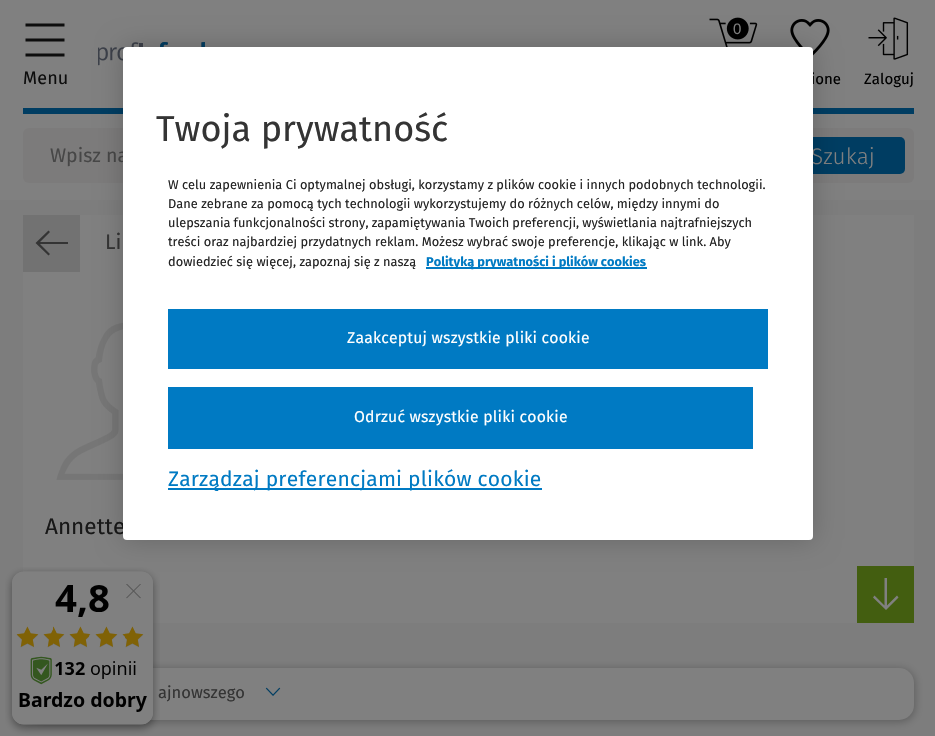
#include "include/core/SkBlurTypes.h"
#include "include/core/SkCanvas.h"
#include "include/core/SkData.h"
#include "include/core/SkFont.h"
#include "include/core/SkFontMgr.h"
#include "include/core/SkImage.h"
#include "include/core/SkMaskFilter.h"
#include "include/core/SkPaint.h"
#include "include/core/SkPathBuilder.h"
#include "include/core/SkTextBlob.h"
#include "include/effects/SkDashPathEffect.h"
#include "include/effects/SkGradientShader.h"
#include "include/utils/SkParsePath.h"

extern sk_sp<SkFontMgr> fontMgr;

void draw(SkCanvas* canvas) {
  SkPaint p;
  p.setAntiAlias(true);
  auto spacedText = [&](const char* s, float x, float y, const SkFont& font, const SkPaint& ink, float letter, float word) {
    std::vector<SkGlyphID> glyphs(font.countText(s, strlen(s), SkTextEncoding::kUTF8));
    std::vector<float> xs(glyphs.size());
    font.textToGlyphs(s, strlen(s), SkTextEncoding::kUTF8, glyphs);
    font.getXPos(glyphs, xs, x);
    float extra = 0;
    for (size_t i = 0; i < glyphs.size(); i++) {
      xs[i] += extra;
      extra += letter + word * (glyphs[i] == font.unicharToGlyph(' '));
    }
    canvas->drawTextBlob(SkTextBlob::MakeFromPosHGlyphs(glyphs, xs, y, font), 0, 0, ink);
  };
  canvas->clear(SkColorSetRGB(125, 125, 125));
  p.setColor(SkColorSetRGB(128, 128, 128));
  canvas->drawRect(SkRect::MakeLTRB(0, 0, 935, 200), p);
  canvas->drawImageRect(SkImages::DeferredFromEncodedData(SkData::MakeFromFileName("images/1.png")), SkRect::MakeLTRB(709, 17, 758, 47), SkSamplingOptions());
  canvas->drawImageRect(SkImages::DeferredFromEncodedData(SkData::MakeFromFileName("images/2.png")), SkRect::MakeLTRB(790, 19, 830, 56), SkSamplingOptions());
  canvas->drawImageRect(SkImages::DeferredFromEncodedData(SkData::MakeFromFileName("images/3.png")), SkRect::MakeLTRB(868, 17, 909, 60), SkSamplingOptions());
  canvas->drawImageRect(SkImages::DeferredFromEncodedData(SkData::MakeFromFileName("images/4.png")), SkRect::MakeLTRB(98, 42, 205, 66), SkSamplingOptions());
  p.setColor(SkColorSetRGB(13, 13, 13));
  canvas->drawPath(SkPathBuilder().moveTo(25.5f, 23.5f).lineTo(25.5f, 26.5f).lineTo(64.5f, 26.5f).lineTo(64.5f, 23.5f).close().moveTo(25.5f, 41.5f).lineTo(64.5f, 41.5f).lineTo(64.5f, 38.5f).lineTo(25.5f, 38.5f).close().moveTo(25.5f, 56.5f).lineTo(64.5f, 56.5f).lineTo(64.5f, 53.5f).lineTo(25.5f, 53.5f).close().detach(), p);
  p.setColor(SkColorSetRGB(124, 123, 123));
  canvas->drawRoundRect(SkRect::MakeLTRB(23, 128, 914, 183), 6, 6, p);
  p.setColor(SkColorSetRGB(0, 61, 98));
  canvas->drawRoundRect(SkRect::MakeLTRB(786, 137, 905, 174), 5, 5, p);
  canvas->drawRect(SkRect::MakeLTRB(23, 108, 914, 114), p);
  p.setColor(SkColorSetRGB(128, 128, 128));
  canvas->drawRect(SkRect::MakeLTRB(23, 215, 914, 623), p);
  p.setColor(SkColorSetRGB(114, 114, 114));
  canvas->drawRect(SkRect::MakeLTRB(23, 215, 80, 272), p);
  p.setColor(SkColorSetRGB(52, 52, 52));
  canvas->drawPath(SkPathBuilder().moveTo(68, 242).lineTo(40, 242).lineTo(50, 232).lineTo(48.5f, 230.5f).lineTo(35.5f, 243).lineTo(48.5f, 255.5f).lineTo(50, 254).lineTo(40, 244).lineTo(68, 244).close().detach(), p);
  p.setColor(SkColorSetRGB(67, 94, 16));
  canvas->drawRect(SkRect::MakeLTRB(857, 566, 914, 623), p);
  p.setColor(SkColorSetRGB(128, 128, 128));
  canvas->drawPath(SkPathBuilder().moveTo(897, 595.5f).lineTo(887, 605.5f).lineTo(887, 578).lineTo(884.5f, 578).lineTo(884.5f, 605.5f).lineTo(874.5f, 595.5f).lineTo(873, 597.5f).lineTo(886, 610).lineTo(898.5f, 597.5f).close().detach(), p);
  canvas->drawImageRect(SkImages::DeferredFromEncodedData(SkData::MakeFromFileName("images/5.png")), SkRect::MakeLTRB(56, 322, 123, 480), SkSamplingOptions());
  p.setColor(SkColorSetARGB(64, 0, 0, 0));
  p.setMaskFilter(SkMaskFilter::MakeBlur(kNormal_SkBlurStyle, 4.5f));
  canvas->drawRoundRect(SkRect::MakeLTRB(24, 669, 915, 722), 15, 15, p);
  p.setMaskFilter(nullptr);
  p.setColor(SkColorSetRGB(128, 128, 128));
  canvas->drawRoundRect(SkRect::MakeLTRB(23, 668, 914, 720), 15, 15, p);
  canvas->drawImageRect(SkImages::DeferredFromEncodedData(SkData::MakeFromFileName("images/6.png")), SkRect::MakeLTRB(265, 687, 281, 696), SkSamplingOptions());
  SkFont font1(fontMgr->matchFamilyStyle("Liberation Sans", SkFontStyle::Normal()), 15);
  font1.setSubpixel(true);
  canvas->drawString("0", 733, 34, font1, p);
  SkFont font2(fontMgr->matchFamilyStyle("Fira Sans", SkFontStyle::Normal()), 15);
  font2.setSubpixel(true);
  p.setColor(SK_ColorBLACK);
  canvas->drawString("ione", 811, 84, font2, p);
  canvas->drawString("Zaloguj", 864, 84, font2, p);
  SkFont font3(fontMgr->matchFamilyStyle("Fira Sans", SkFontStyle::Normal()), 18);
  font3.setSubpixel(true);
  p.setColor(SkColorSetRGB(13, 13, 13));
  canvas->drawString("Menu", 23, 84, font3, p);
  SkFont font4(fontMgr->matchFamilyStyle("Fira Sans", SkFontStyle::Normal()), 19.5f);
  font4.setSubpixel(true);
  p.setColor(SkColorSetRGB(71, 71, 71));
  canvas->drawString("Wpisz na", 50, 162, font4, p);
  SkFont font5(fontMgr->matchFamilyStyle("Fira Sans", SkFontStyle(300, SkFontStyle::kNormal_Width, SkFontStyle::kUpright_Slant)), 22.5f);
  font5.setSubpixel(true);
  p.setColor(SkColorSetRGB(128, 128, 128));
  canvas->drawString("Szukaj", 811, 164, font5, p);
  SkFont font6(fontMgr->matchFamilyStyle("Fira Sans", SkFontStyle::Normal()), 21);
  font6.setSubpixel(true);
  p.setColor(SkColorSetRGB(52, 52, 52));
  canvas->drawString("Li", 105, 249, font6, p);
  SkFont font7(fontMgr->matchFamilyStyle("Fira Sans", SkFontStyle::Normal()), 22.5f);
  font7.setSubpixel(true);
  p.setColor(SkColorSetRGB(24, 24, 24));
  canvas->drawString("Annette", 45, 534, font7, p);
  SkFont font8(fontMgr->matchFamilyStyle("Fira Sans", SkFontStyle::Normal()), 16.5f);
  font8.setSubpixel(true);
  p.setColor(SkColorSetRGB(52, 52, 52));
  canvas->drawString("ajnowszego", 158, 698, font8, p);
  canvas->drawImageRect(SkImages::DeferredFromEncodedData(SkData::MakeFromFileName("images/7.png")), SkRect::MakeLTRB(5, 567, 160, 735), SkSamplingOptions());
  p.setColor(SkColorSetARGB(51, 0, 0, 0));
  p.setMaskFilter(SkMaskFilter::MakeBlur(kNormal_SkBlurStyle, 13.5f));
  canvas->drawRoundRect(SkRect::MakeLTRB(123, 47, 813, 540), 4, 4, p);
  p.setMaskFilter(nullptr);
  p.setColor(SK_ColorWHITE);
  canvas->drawRoundRect(SkRect::MakeLTRB(123, 47, 813, 540), 4, 4, p);
  p.setColor(SkColorSetRGB(0, 122, 195));
  canvas->drawRect(SkRect::MakeLTRB(168, 309, 768, 369), p);
  SkFont font9(fontMgr->matchFamilyStyle("Fira Sans", SkFontStyle::Normal()), 15.75f);
  font9.setSubpixel(true);
  p.setColor(SK_ColorWHITE);
  spacedText("Zaakceptuj wszystkie pliki cookie", 347, 343, font9, p, 0.2f, 0);
  p.setColor(SkColorSetRGB(0, 122, 195));
  canvas->drawRect(SkRect::MakeLTRB(168, 387, 753, 449), p);
  p.setColor(SK_ColorWHITE);
  spacedText("Odrzuć wszystkie pliki cookie", 354, 422, font9, p, 0.2f, 0);
  p.setColor(SkColorSetRGB(0, 122, 195));
  canvas->drawRect(SkRect::MakeLTRB(168, 488, 542, 490), p);
  spacedText("Zarządzaj preferencjami plików cookie", 168, 486, font6, p, 0.2f, 0);
  canvas->drawRect(SkRect::MakeLTRB(426, 267, 647, 269), p);
  SkFont font10(fontMgr->matchFamilyStyle("Fira Sans", SkFontStyle::Bold()), 12.8f);
  font10.setSubpixel(true);
  canvas->drawString("Polityką prywatności i plików cookies", 426, 266, font10, p);
  SkFont font11(fontMgr->matchFamilyStyle("Fira Sans", SkFontStyle::Normal()), 12.8f);
  font11.setSubpixel(true);
  p.setColor(SkColorSetRGB(35, 35, 35));
  canvas->drawString("dowiedzieć się więcej, zapoznaj się z naszą", 168, 266, font11, p);
  canvas->drawString("treści oraz najbardziej przydatnych reklam. Możesz wybrać swoje preferencje, klikając w link. Aby", 168, 246, font11, p);
  spacedText("ulepszania funkcjonalności strony, zapamiętywania Twoich preferencji, wyświetlania najtrafniejszych", 168, 227, font11, p, 0, -0.25f);
  canvas->drawString("Dane zebrane za pomocą tych technologii wykorzystujemy do różnych celów, między innymi do", 168, 208, font11, p);
  canvas->drawString("W celu zapewnienia Ci optymalnej obsługi, korzystamy z plików cookie i innych podobnych technologii.", 168, 189, font11, p);
  SkFont font12(fontMgr->matchFamilyStyle("Fira Sans", SkFontStyle::Normal()), 36);
  font12.setSubpixel(true);
  p.setColor(SkColorSetRGB(52, 52, 52));
  canvas->drawString("Twoja prywatność", 156, 141, font12, p);
}
